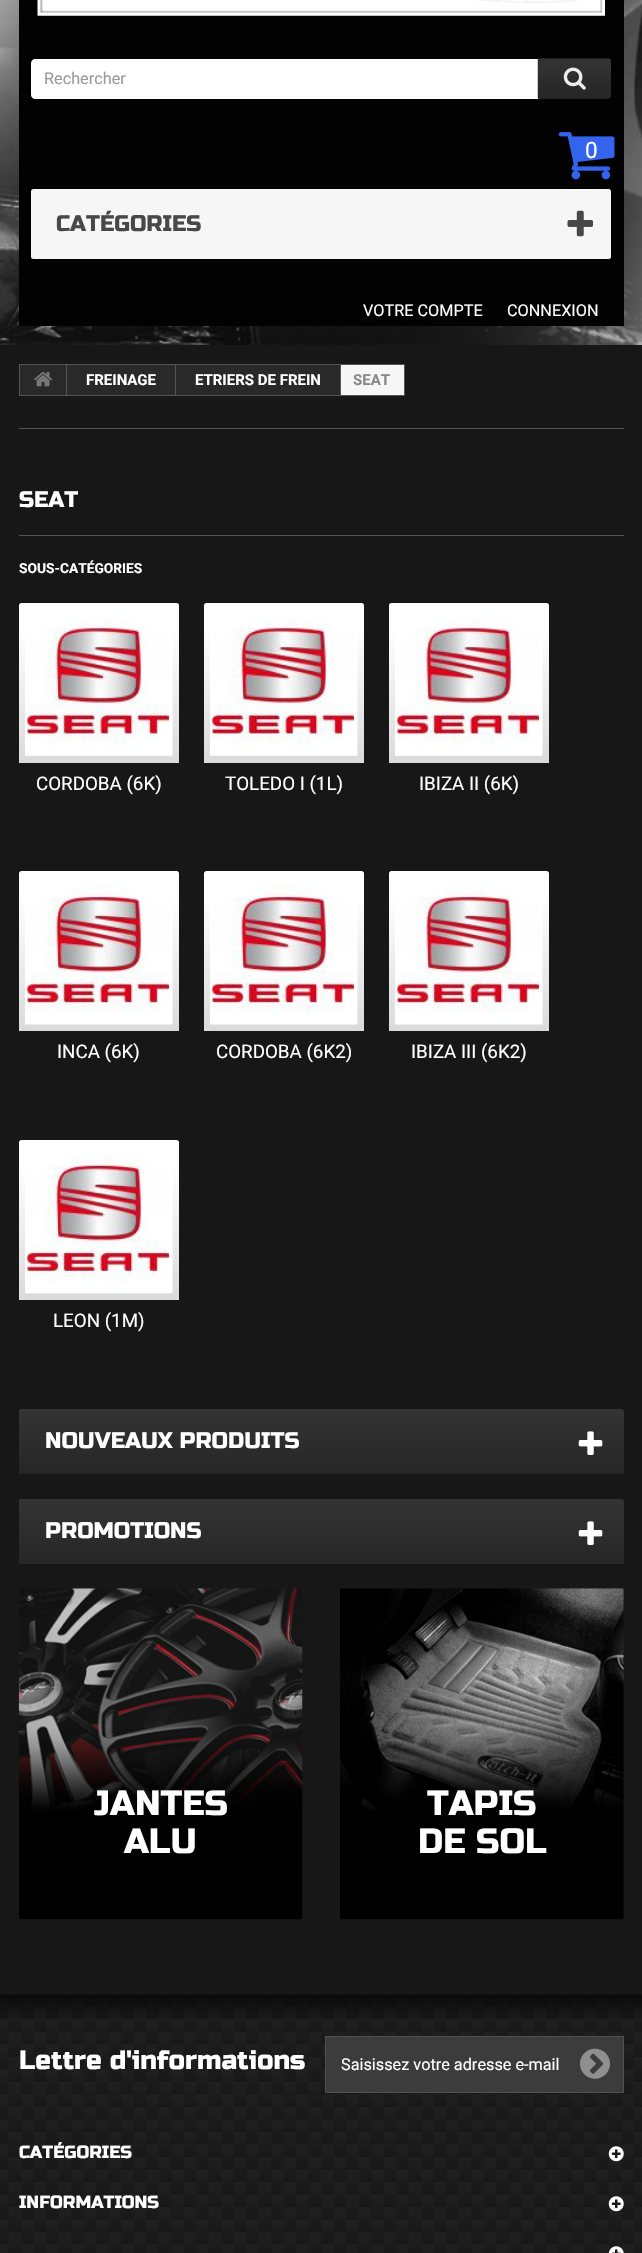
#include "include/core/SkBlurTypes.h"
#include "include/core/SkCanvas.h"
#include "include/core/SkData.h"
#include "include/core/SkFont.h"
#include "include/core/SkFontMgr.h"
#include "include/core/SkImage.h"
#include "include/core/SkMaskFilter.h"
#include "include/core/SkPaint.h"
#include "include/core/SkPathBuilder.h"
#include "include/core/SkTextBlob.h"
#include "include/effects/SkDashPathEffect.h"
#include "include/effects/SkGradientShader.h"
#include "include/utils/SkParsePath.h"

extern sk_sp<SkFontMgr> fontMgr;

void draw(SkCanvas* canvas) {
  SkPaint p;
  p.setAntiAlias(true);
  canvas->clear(SkColorSetRGB(23, 23, 23));
  canvas->drawImageRect(SkImages::DeferredFromEncodedData(SkData::MakeFromFileName("images/1.png")), SkRect::MakeLTRB(0, 0, 642, 345), SkSamplingOptions());
  p.setColor(SkColorSetRGB(2, 2, 2));
  canvas->drawRect(SkRect::MakeLTRB(19, 0, 624, 326), p);
  canvas->drawImageRect(SkImages::DeferredFromEncodedData(SkData::MakeFromFileName("images/2.png")), SkRect::MakeLTRB(37, 0, 605, 16), SkSamplingOptions());
  p.setColor(SK_ColorWHITE);
  canvas->drawPath(SkPathBuilder().moveTo(35, 59).lineTo(538, 59).lineTo(538, 99).lineTo(35, 99).cubicTo(33, 99, 31, 97, 31, 95).lineTo(31, 63).cubicTo(31, 61, 33, 59, 35, 59).close().detach(), p);
  p.setColor(SkColorSetRGB(38, 38, 38));
  canvas->drawPath(SkPathBuilder().moveTo(538, 59).lineTo(607, 59).cubicTo(609, 59, 611, 61, 611, 63).lineTo(611, 95).cubicTo(611, 97, 609, 99, 607, 99).lineTo(538, 99).close().detach(), p);
  canvas->drawImageRect(SkImages::DeferredFromEncodedData(SkData::MakeFromFileName("images/3.png")), SkRect::MakeLTRB(537, 58, 611, 98), SkSamplingOptions());
  canvas->drawImageRect(SkImages::DeferredFromEncodedData(SkData::MakeFromFileName("images/4.png")), SkRect::MakeLTRB(563, 67, 586, 90), SkSamplingOptions());
  canvas->drawImageRect(SkImages::DeferredFromEncodedData(SkData::MakeFromFileName("images/5.png")), SkRect::MakeLTRB(558, 132, 615, 180), SkSamplingOptions());
  p.setColor(SkColorSetRGB(246, 246, 246));
  canvas->drawRoundRect(SkRect::MakeLTRB(31, 189, 611, 259), 2.5f, 2.5f, p);
  canvas->drawImageRect(SkImages::DeferredFromEncodedData(SkData::MakeFromFileName("images/6.png")), SkRect::MakeLTRB(567, 210, 594, 237), SkSamplingOptions());
  canvas->drawRect(SkRect::MakeLTRB(341, 365, 404, 395), p);
  p.setStyle(SkPaint::kStroke_Style);
  p.setStrokeWidth(1);
  p.setColor(SkColorSetRGB(86, 85, 85));
  canvas->drawRect(SkRect::MakeLTRB(19.5f, 364.5f, 404.5f, 395.5f), p);
  p.setStyle(SkPaint::kFill_Style);
  p.setColor(SkColorSetRGB(41, 41, 41));
  canvas->drawRect(SkRect::MakeLTRB(20, 365, 175, 395), p);
  p.setColor(SkColorSetRGB(86, 85, 85));
  canvas->drawRect(SkRect::MakeLTRB(66, 365, 67, 395), p);
  canvas->drawImageRect(SkImages::DeferredFromEncodedData(SkData::MakeFromFileName("images/7.png")), SkRect::MakeLTRB(34, 371, 52, 387), SkSamplingOptions());
  canvas->drawRect(SkRect::MakeLTRB(175, 365, 176, 395), p);
  p.setColor(SkColorSetRGB(41, 41, 41));
  canvas->drawRect(SkRect::MakeLTRB(176, 365, 340, 395), p);
  p.setColor(SkColorSetRGB(86, 85, 85));
  canvas->drawRect(SkRect::MakeLTRB(340, 365, 341, 395), p);
  canvas->drawRect(SkRect::MakeLTRB(19, 428, 624, 429), p);
  canvas->drawRect(SkRect::MakeLTRB(19, 535, 624, 536), p);
  {
    const SkColor colors[] = {SK_ColorWHITE, SkColorSetRGB(218, 218, 218)};
    const float stops[] = {0.15f, 1};
    const SkPoint ends[] = {{99, 603}, {99, 763}};
    p.setShader(SkGradientShader::MakeLinear(ends, colors, stops, 2, SkTileMode::kClamp));
    p.setAlpha(255);
  }
  canvas->drawPath(SkPathBuilder().moveTo(21.5f, 603).lineTo(176.5f, 603).cubicTo(178, 603, 179, 604, 179, 605.5f).lineTo(179, 763).lineTo(19, 763).lineTo(19, 605.5f).cubicTo(19, 604, 20, 603, 21.5f, 603).close().detach(), p);
  canvas->drawImageRect(SkImages::DeferredFromEncodedData(SkData::MakeFromFileName("images/8.png")), SkRect::MakeLTRB(25, 617, 173, 756), SkSamplingOptions());
  {
    const SkColor colors[] = {SK_ColorWHITE, SkColorSetRGB(218, 218, 218)};
    const float stops[] = {0.15f, 1};
    const SkPoint ends[] = {{284, 603}, {284, 763}};
    p.setShader(SkGradientShader::MakeLinear(ends, colors, stops, 2, SkTileMode::kClamp));
    p.setAlpha(255);
  }
  canvas->drawPath(SkPathBuilder().moveTo(206.5f, 603).lineTo(361.5f, 603).cubicTo(363, 603, 364, 604, 364, 605.5f).lineTo(364, 763).lineTo(204, 763).lineTo(204, 605.5f).cubicTo(204, 604, 205, 603, 206.5f, 603).close().detach(), p);
  canvas->drawImageRect(SkImages::DeferredFromEncodedData(SkData::MakeFromFileName("images/8.png")), SkRect::MakeLTRB(210, 617, 358, 756), SkSamplingOptions());
  {
    const SkColor colors[] = {SK_ColorWHITE, SkColorSetRGB(218, 218, 218)};
    const float stops[] = {0.15f, 1};
    const SkPoint ends[] = {{469, 603}, {469, 763}};
    p.setShader(SkGradientShader::MakeLinear(ends, colors, stops, 2, SkTileMode::kClamp));
    p.setAlpha(255);
  }
  canvas->drawPath(SkPathBuilder().moveTo(391.5f, 603).lineTo(546.5f, 603).cubicTo(548, 603, 549, 604, 549, 605.5f).lineTo(549, 763).lineTo(389, 763).lineTo(389, 605.5f).cubicTo(389, 604, 390, 603, 391.5f, 603).close().detach(), p);
  canvas->drawImageRect(SkImages::DeferredFromEncodedData(SkData::MakeFromFileName("images/8.png")), SkRect::MakeLTRB(395, 617, 543, 756), SkSamplingOptions());
  {
    const SkColor colors[] = {SK_ColorWHITE, SkColorSetRGB(218, 218, 218)};
    const float stops[] = {0.15f, 1};
    const SkPoint ends[] = {{99, 871}, {99, 1031}};
    p.setShader(SkGradientShader::MakeLinear(ends, colors, stops, 2, SkTileMode::kClamp));
    p.setAlpha(255);
  }
  canvas->drawPath(SkPathBuilder().moveTo(21.5f, 871).lineTo(176.5f, 871).cubicTo(178, 871, 179, 872, 179, 873.5f).lineTo(179, 1031).lineTo(19, 1031).lineTo(19, 873.5f).cubicTo(19, 872, 20, 871, 21.5f, 871).close().detach(), p);
  canvas->drawImageRect(SkImages::DeferredFromEncodedData(SkData::MakeFromFileName("images/9.png")), SkRect::MakeLTRB(25, 885, 173, 1025), SkSamplingOptions());
  {
    const SkColor colors[] = {SK_ColorWHITE, SkColorSetRGB(218, 218, 218)};
    const float stops[] = {0.15f, 1};
    const SkPoint ends[] = {{284, 871}, {284, 1031}};
    p.setShader(SkGradientShader::MakeLinear(ends, colors, stops, 2, SkTileMode::kClamp));
    p.setAlpha(255);
  }
  canvas->drawPath(SkPathBuilder().moveTo(206.5f, 871).lineTo(361.5f, 871).cubicTo(363, 871, 364, 872, 364, 873.5f).lineTo(364, 1031).lineTo(204, 1031).lineTo(204, 873.5f).cubicTo(204, 872, 205, 871, 206.5f, 871).close().detach(), p);
  canvas->drawImageRect(SkImages::DeferredFromEncodedData(SkData::MakeFromFileName("images/9.png")), SkRect::MakeLTRB(210, 885, 358, 1025), SkSamplingOptions());
  {
    const SkColor colors[] = {SK_ColorWHITE, SkColorSetRGB(218, 218, 218)};
    const float stops[] = {0.15f, 1};
    const SkPoint ends[] = {{469, 871}, {469, 1031}};
    p.setShader(SkGradientShader::MakeLinear(ends, colors, stops, 2, SkTileMode::kClamp));
    p.setAlpha(255);
  }
  canvas->drawPath(SkPathBuilder().moveTo(391.5f, 871).lineTo(546.5f, 871).cubicTo(548, 871, 549, 872, 549, 873.5f).lineTo(549, 1031).lineTo(389, 1031).lineTo(389, 873.5f).cubicTo(389, 872, 390, 871, 391.5f, 871).close().detach(), p);
  canvas->drawImageRect(SkImages::DeferredFromEncodedData(SkData::MakeFromFileName("images/9.png")), SkRect::MakeLTRB(395, 885, 543, 1025), SkSamplingOptions());
  {
    const SkColor colors[] = {SK_ColorWHITE, SkColorSetRGB(218, 218, 218)};
    const float stops[] = {0.15f, 1};
    const SkPoint ends[] = {{99, 1140}, {99, 1300}};
    p.setShader(SkGradientShader::MakeLinear(ends, colors, stops, 2, SkTileMode::kClamp));
    p.setAlpha(255);
  }
  canvas->drawPath(SkPathBuilder().moveTo(21.5f, 1140).lineTo(176.5f, 1140).cubicTo(178, 1140, 179, 1141, 179, 1142.5f).lineTo(179, 1300).lineTo(19, 1300).lineTo(19, 1142.5f).cubicTo(19, 1141, 20, 1140, 21.5f, 1140).close().detach(), p);
  canvas->drawImageRect(SkImages::DeferredFromEncodedData(SkData::MakeFromFileName("images/10.png")), SkRect::MakeLTRB(25, 1154, 173, 1294), SkSamplingOptions());
  {
    const SkColor colors[] = {SkColorSetRGB(52, 52, 52), SkColorSetRGB(38, 38, 38)};
    const float stops[] = {0, 1};
    const SkPoint ends[] = {{321, 1409}, {321, 1474}};
    p.setShader(SkGradientShader::MakeLinear(ends, colors, stops, 2, SkTileMode::kClamp));
    p.setAlpha(255);
  }
  canvas->drawPath(SkPathBuilder().moveTo(21.5f, 1409).lineTo(621.5f, 1409).cubicTo(623, 1409, 624, 1410, 624, 1411.5f).lineTo(624, 1474).lineTo(19, 1474).lineTo(19, 1411.5f).cubicTo(19, 1410, 20, 1409, 21.5f, 1409).close().detach(), p);
  canvas->drawImageRect(SkImages::DeferredFromEncodedData(SkData::MakeFromFileName("images/11.png")), SkRect::MakeLTRB(578, 1431, 603, 1455), SkSamplingOptions());
  {
    const SkColor colors[] = {SkColorSetRGB(52, 52, 52), SkColorSetRGB(38, 38, 38)};
    const float stops[] = {0, 1};
    const SkPoint ends[] = {{321, 1499}, {321, 1564}};
    p.setShader(SkGradientShader::MakeLinear(ends, colors, stops, 2, SkTileMode::kClamp));
    p.setAlpha(255);
  }
  canvas->drawPath(SkPathBuilder().moveTo(21.5f, 1499).lineTo(621.5f, 1499).cubicTo(623, 1499, 624, 1500, 624, 1501.5f).lineTo(624, 1564).lineTo(19, 1564).lineTo(19, 1501.5f).cubicTo(19, 1500, 20, 1499, 21.5f, 1499).close().detach(), p);
  canvas->drawImageRect(SkImages::DeferredFromEncodedData(SkData::MakeFromFileName("images/11.png")), SkRect::MakeLTRB(578, 1521, 603, 1545), SkSamplingOptions());
  canvas->drawImageRect(SkImages::DeferredFromEncodedData(SkData::MakeFromFileName("images/12.png")), SkRect::MakeLTRB(18, 1588, 303, 1920), SkSamplingOptions());
  canvas->drawImageRect(SkImages::DeferredFromEncodedData(SkData::MakeFromFileName("images/13.png")), SkRect::MakeLTRB(340, 1588, 624, 1920), SkSamplingOptions());
  canvas->drawImageRect(SkImages::DeferredFromEncodedData(SkData::MakeFromFileName("images/14.png")), SkRect::MakeLTRB(0, 1995, 642, 2253), SkSamplingOptions());
  canvas->drawImageRect(SkImages::DeferredFromEncodedData(SkData::MakeFromFileName("images/15.png")), SkRect::MakeLTRB(0, 1994, 642, 2018), SkSamplingOptions());
  p.setShader(nullptr);
  p.setColor(SkColorSetRGB(60, 60, 60));
  canvas->drawRect(SkRect::MakeLTRB(325.5f, 2036.5f, 623.5f, 2092.5f), p);
  p.setStyle(SkPaint::kStroke_Style);
  p.setColor(SkColorSetRGB(81, 81, 81));
  canvas->drawRect(SkRect::MakeLTRB(325.5f, 2036.5f, 623.5f, 2092.5f), p);
  canvas->drawImageRect(SkImages::DeferredFromEncodedData(SkData::MakeFromFileName("images/16.png")), SkRect::MakeLTRB(580, 2048, 610, 2079), SkSamplingOptions());
  canvas->drawImageRect(SkImages::DeferredFromEncodedData(SkData::MakeFromFileName("images/17.png")), SkRect::MakeLTRB(608, 2146, 624, 2162), SkSamplingOptions());
  canvas->drawImageRect(SkImages::DeferredFromEncodedData(SkData::MakeFromFileName("images/17.png")), SkRect::MakeLTRB(608, 2196, 624, 2212), SkSamplingOptions());
  canvas->drawImageRect(SkImages::DeferredFromEncodedData(SkData::MakeFromFileName("images/18.png")), SkRect::MakeLTRB(608, 2246, 624, 2253), SkSamplingOptions());
  SkFont font1(fontMgr->matchFamilyStyle("Roboto", SkFontStyle::Normal()), 16.25f);
  font1.setSubpixel(true);
  p.setStyle(SkPaint::kFill_Style);
  p.setColor(SkColorSetRGB(153, 153, 153));
  canvas->drawString("Rechercher", 44, 84, font1, p);
  SkFont font2(fontMgr->matchFamilyStyle("Roboto", SkFontStyle::Normal()), 22.5f);
  font2.setSubpixel(true);
  p.setColor(SK_ColorWHITE);
  canvas->drawString("0", 585, 158, font2, p);
  SkFont font3(fontMgr->matchFamilyStyle("Russo One", SkFontStyle::Normal()), 22.5f);
  font3.setSubpixel(true);
  p.setColor(SkColorSetRGB(72, 72, 72));
  canvas->drawString("CATÉGORIES", 56, 231, font3, p);
  p.setColor(SK_ColorWHITE);
  canvas->drawString("VOTRE COMPTE", 363, 316, font1, p);
  canvas->drawString("CONNEXION", 507, 316, font1, p);
  SkFont font4(fontMgr->matchFamilyStyle("Roboto", SkFontStyle::Bold()), 15);
  font4.setSubpixel(true);
  canvas->drawString("FREINAGE", 86, 385, font4, p);
  canvas->drawString("ETRIERS DE FREIN", 195, 385, font4, p);
  p.setColor(SkColorSetRGB(136, 136, 136));
  canvas->drawString("SEAT", 353, 385, font4, p);
  p.setColor(SK_ColorWHITE);
  canvas->drawString("SEAT", 19, 507, font3, p);
  SkFont font5(fontMgr->matchFamilyStyle("Roboto", SkFontStyle::Bold()), 13.75f);
  font5.setSubpixel(true);
  canvas->drawString("SOUS-CATÉGORIES", 19, 573, font5, p);
  SkFont font6(fontMgr->matchFamilyStyle("Roboto", SkFontStyle::Normal()), 18.75f);
  font6.setSubpixel(true);
  canvas->drawString("CORDOBA (6K)", 36, 790, font6, p);
  canvas->drawString("TOLEDO I (1L)", 225, 790, font6, p);
  canvas->drawString("IBIZA II (6K)", 419, 790, font6, p);
  canvas->drawString("INCA (6K)", 57, 1058, font6, p);
  canvas->drawString("CORDOBA (6K2)", 216, 1058, font6, p);
  canvas->drawString("IBIZA III (6K2)", 411, 1058, font6, p);
  canvas->drawString("LEON (1M)", 53, 1327, font6, p);
  canvas->drawString("NOUVEAUX PRODUITS", 45, 1448, font3, p);
  canvas->drawString("PROMOTIONS", 45, 1538, font3, p);
  SkFont font7(fontMgr->matchFamilyStyle("Russo One", SkFontStyle::Normal()), 35);
  font7.setSubpixel(true);
  canvas->drawString("JANTES", 94, 1815, font7, p);
  canvas->drawString("ALU", 124, 1853, font7, p);
  canvas->drawString("TAPIS", 427, 1815, font7, p);
  canvas->drawString("DE SOL", 418, 1853, font7, p);
  SkFont font8(fontMgr->matchFamilyStyle("Russo One", SkFontStyle::Normal()), 26.25f);
  font8.setSubpixel(true);
  canvas->drawString("Lettre d'informations", 19, 2069, font8, p);
  canvas->drawString("Saisissez votre adresse e-mail", 341, 2070, font1, p);
  SkFont font9(fontMgr->matchFamilyStyle("Russo One", SkFontStyle::Normal()), 17.5f);
  font9.setSubpixel(true);
  canvas->drawString("CATÉGORIES", 19, 2158, font9, p);
  canvas->drawString("INFORMATIONS", 19, 2208, font9, p);
}
